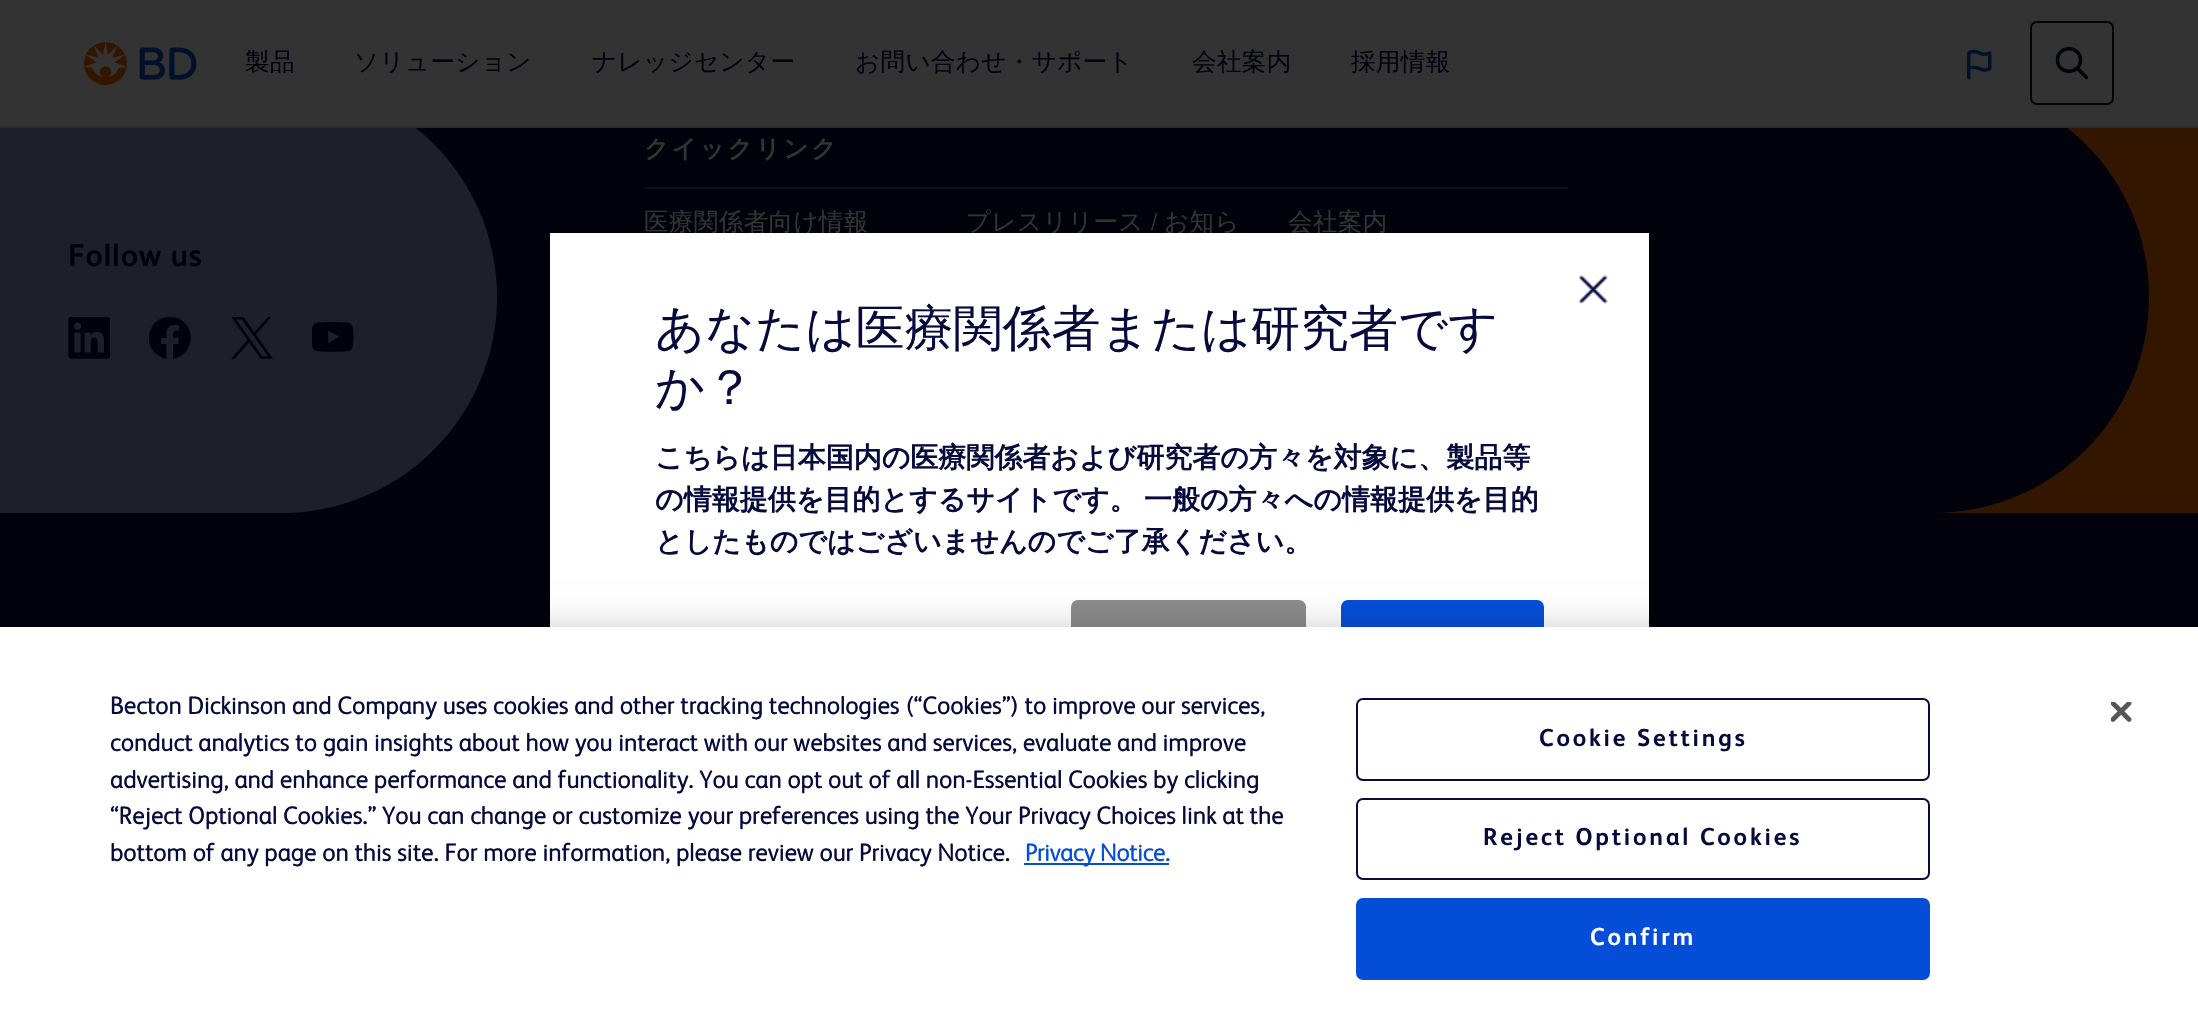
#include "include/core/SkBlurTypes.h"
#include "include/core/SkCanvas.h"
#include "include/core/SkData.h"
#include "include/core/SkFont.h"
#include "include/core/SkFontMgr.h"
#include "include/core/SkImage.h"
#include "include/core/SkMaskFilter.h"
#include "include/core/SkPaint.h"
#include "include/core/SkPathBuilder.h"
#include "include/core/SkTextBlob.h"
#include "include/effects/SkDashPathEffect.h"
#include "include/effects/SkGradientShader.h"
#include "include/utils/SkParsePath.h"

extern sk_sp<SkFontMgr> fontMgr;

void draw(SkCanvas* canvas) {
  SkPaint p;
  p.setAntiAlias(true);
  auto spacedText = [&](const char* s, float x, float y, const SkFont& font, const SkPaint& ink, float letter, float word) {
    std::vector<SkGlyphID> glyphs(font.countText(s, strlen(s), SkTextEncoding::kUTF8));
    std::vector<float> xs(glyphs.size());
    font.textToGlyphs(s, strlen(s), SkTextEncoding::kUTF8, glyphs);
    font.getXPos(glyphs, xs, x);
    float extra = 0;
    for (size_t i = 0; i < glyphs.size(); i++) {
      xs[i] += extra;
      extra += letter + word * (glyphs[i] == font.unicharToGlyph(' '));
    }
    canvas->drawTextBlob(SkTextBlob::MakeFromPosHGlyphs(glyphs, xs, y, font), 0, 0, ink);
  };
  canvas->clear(SkColorSetRGB(1, 2, 12));
  p.setColor(SkColorSetRGB(51, 22, 0));
  canvas->drawRect(SkRect::MakeLTRB(1934, 128, 2198, 513), p);
  p.setColor(SkColorSetRGB(1, 2, 12));
  canvas->drawPath(SkPathBuilder().moveTo(0, 81).lineTo(1933, 81).cubicTo(2052.5f, 81, 2149, 177.5f, 2149, 297).cubicTo(2149, 416.5f, 2052.5f, 513, 1933, 513).lineTo(0, 513).close().detach(), p);
  p.setColor(SkColorSetRGB(29, 31, 43));
  canvas->drawPath(SkPathBuilder().moveTo(-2, 81).lineTo(281, 81).cubicTo(400.5f, 81, 497, 177.5f, 497, 297).cubicTo(497, 416.5f, 400.5f, 513, 281, 513).lineTo(-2, 513).close().detach(), p);
  p.setColor(SkColorSetRGB(51, 51, 51));
  canvas->drawRect(SkRect::MakeLTRB(0, 0, 2198, 126), p);
  p.setColor(SkColorSetRGB(43, 43, 43));
  canvas->drawRect(SkRect::MakeLTRB(0, 126, 2198, 128), p);
  canvas->drawImageRect(SkImages::DeferredFromEncodedData(SkData::MakeFromFileName("images/1.png")), SkRect::MakeLTRB(84, 42, 197, 86), SkSamplingOptions());
  canvas->drawImageRect(SkImages::DeferredFromEncodedData(SkData::MakeFromFileName("images/2.png")), SkRect::MakeLTRB(1967, 49, 1992, 80), SkSamplingOptions());
  p.setColor(SkColorSetRGB(48, 48, 48));
  canvas->drawRect(SkRect::MakeLTRB(2030, 21, 2114, 105), p);
  p.setColor(SkColorSetRGB(51, 51, 51));
  canvas->drawRoundRect(SkRect::MakeLTRB(2031, 22, 2113, 104), 6, 6, p);
  p.setStyle(SkPaint::kStroke_Style);
  p.setStrokeWidth(2);
  p.setColor(SkColorSetRGB(0, 4, 7));
  canvas->drawRoundRect(SkRect::MakeLTRB(2031, 22, 2113, 104), 6, 6, p);
  p.setStrokeWidth(3.5f);
  p.setStrokeCap(SkPaint::kRound_Cap);
  p.setStrokeJoin(SkPaint::kRound_Join);
  canvas->drawPath(SkPathBuilder().moveTo(2080.5f, 60).cubicTo(2080.5f, 75, 2057.5f, 75, 2057.5f, 60).cubicTo(2057.5f, 45, 2080.5f, 45, 2080.5f, 60).close().moveTo(2086.5f, 77.5f).lineTo(2077.5f, 68.5f).detach(), p);
  p.setStyle(SkPaint::kFill_Style);
  p.setColor(SkColorSetRGB(12, 13, 25));
  canvas->drawRect(SkRect::MakeLTRB(644, 187, 1568, 189), p);
  canvas->drawImageRect(SkImages::DeferredFromEncodedData(SkData::MakeFromFileName("images/3.png")), SkRect::MakeLTRB(68, 317, 110, 359), SkSamplingOptions());
  canvas->drawImageRect(SkImages::DeferredFromEncodedData(SkData::MakeFromFileName("images/4.png")), SkRect::MakeLTRB(149, 317, 191, 359), SkSamplingOptions());
  canvas->drawImageRect(SkImages::DeferredFromEncodedData(SkData::MakeFromFileName("images/5.png")), SkRect::MakeLTRB(231, 317, 273, 359), SkSamplingOptions());
  canvas->drawImageRect(SkImages::DeferredFromEncodedData(SkData::MakeFromFileName("images/6.png")), SkRect::MakeLTRB(312, 322, 354, 352), SkSamplingOptions());
  SkFont font1(fontMgr->matchFamilyStyle("WenQuanYi Zen Hei", SkFontStyle(500, SkFontStyle::kNormal_Width, SkFontStyle::kUpright_Slant)), 24.5f);
  font1.setSubpixel(true);
  p.setColor(SkColorSetRGB(1, 2, 12));
  spacedText("製品", 245, 70, font1, p, 0.41f, 0);
  spacedText("ソリューション", 354, 70, font1, p, 0.41f, 0);
  spacedText("ナレッジセンター", 592, 70, font1, p, 0.41f, 0);
  spacedText("お問い合わせ・サポート", 855, 70, font1, p, 0.41f, 0);
  spacedText("会社案内", 1192, 70, font1, p, 0.41f, 0);
  spacedText("採用情報", 1351, 70, font1, p, 0.41f, 0);
  SkFont font2(fontMgr->matchFamilyStyle("WenQuanYi Zen Hei", SkFontStyle::Bold()), 24.5f);
  font2.setSubpixel(true);
  p.setColor(SkColorSetRGB(51, 51, 51));
  spacedText("クイックリンク", 644, 157, font2, p, 2.8f, 0);
  spacedText("医療関係者向け情報", 644, 230, font1, p, 0.41f, 0);
  spacedText("プレスリリース", 966, 230, font1, p, 0.41f, 0);
  SkFont font3(fontMgr->matchFamilyStyle("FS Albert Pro", SkFontStyle(300, SkFontStyle::kNormal_Width, SkFontStyle::kUpright_Slant)), 24.5f);
  font3.setSubpixel(true);
  spacedText("/", 1150, 230, font3, p, 0.41f, 0);
  spacedText("お知ら", 1164, 230, font1, p, 0.41f, 0);
  spacedText("会社案内", 1288, 230, font1, p, 0.41f, 0);
  SkFont font4(fontMgr->matchFamilyStyle("FS Albert Pro", SkFontStyle::Bold()), 31.5f);
  font4.setSubpixel(true);
  p.setColor(SkColorSetRGB(1, 2, 12));
  spacedText("Follow us", 68, 266, font4, p, 0.75f, 0);
  p.setColor(SK_ColorWHITE);
  canvas->drawRect(SkRect::MakeLTRB(550, 233, 1649, 627), p);
  canvas->drawImageRect(SkImages::DeferredFromEncodedData(SkData::MakeFromFileName("images/7.png")), SkRect::MakeLTRB(1578, 275, 1608, 304), SkSamplingOptions());
  SkFont font5(fontMgr->matchFamilyStyle("WenQuanYi Zen Hei", SkFontStyle(500, SkFontStyle::kNormal_Width, SkFontStyle::kUpright_Slant)), 49);
  font5.setSubpixel(true);
  p.setColor(SkColorSetRGB(6, 10, 61));
  canvas->drawString("あなたは医療関係者または研究者です", 655, 345, font5, p);
  canvas->drawString("か？", 655, 404, font5, p);
  SkFont font6(fontMgr->matchFamilyStyle("WenQuanYi Zen Hei", SkFontStyle::Bold()), 28);
  font6.setSubpixel(true);
  canvas->drawString("こちらは日本国内の医療関係者および研究者の方々を対象に、製品等", 655, 467, font6, p);
  spacedText("の情報提供を目的とするサイトです。 一般の方々への情報提供を目的", 655, 509, font6, p, 0, -2);
  canvas->drawString("としたものではございませんのでご了承ください。", 655, 551, font6, p);
  p.setColor(SkColorSetRGB(139, 139, 139));
  canvas->drawRoundRect(SkRect::MakeLTRB(1071, 600, 1306, 712), 7, 7, p);
  p.setColor(SkColorSetRGB(4, 78, 215));
  canvas->drawRoundRect(SkRect::MakeLTRB(1341, 600, 1544, 712), 7, 7, p);
  p.setColor(SkColorSetARGB(51, 0, 0, 0));
  p.setMaskFilter(SkMaskFilter::MakeBlur(kNormal_SkBlurStyle, 16));
  canvas->drawRect(SkRect::MakeLTRB(0, 627, 2198, 1015), p);
  p.setMaskFilter(nullptr);
  p.setColor(SK_ColorWHITE);
  canvas->drawRect(SkRect::MakeLTRB(0, 627, 2198, 1015), p);
  SkFont font7(fontMgr->matchFamilyStyle("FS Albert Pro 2", SkFontStyle::Bold()), 24.5f);
  font7.setSubpixel(true);
  p.setColor(SkColorSetRGB(6, 10, 61));
  spacedText("Becton Dickinson and Company uses cookies and other tracking technologies (“Cookies”) to improve our services,", 110, 714, font7, p, 0.41f, 0);
  spacedText("conduct analytics to gain insights about how you interact with our websites and services, evaluate and improve", 110, 751, font7, p, 0.41f, 0);
  spacedText("advertising, and enhance performance and functionality. You can opt out of all non-Essential Cookies by clicking", 110, 788, font7, p, 0.41f, 0);
  spacedText("“Reject Optional Cookies.” You can change or customize your preferences using the Your Privacy Choices link at the", 110, 824, font7, p, 0.41f, 0);
  spacedText("bottom of any page on this site. For more information, please review our Privacy Notice.", 110, 861, font7, p, 0.41f, 0);
  p.setColor(SkColorSetRGB(4, 78, 215));
  canvas->drawRect(SkRect::MakeLTRB(1024, 863, 1169, 865), p);
  canvas->drawString("Privacy Notice.", 1025, 861, font7, p);
  p.setStyle(SkPaint::kStroke_Style);
  p.setStrokeWidth(2);
  p.setStrokeCap(SkPaint::kButt_Cap);
  p.setStrokeJoin(SkPaint::kMiter_Join);
  p.setColor(SkColorSetRGB(6, 10, 61));
  canvas->drawRoundRect(SkRect::MakeLTRB(1357, 699, 1929, 780), 6, 6, p);
  SkFont font8(fontMgr->matchFamilyStyle("FS Albert Pro", SkFontStyle::Bold()), 24.5f);
  font8.setSubpixel(true);
  p.setStyle(SkPaint::kFill_Style);
  spacedText("Cookie Settings", 1539, 746, font8, p, 2.8f, 0);
  p.setStyle(SkPaint::kStroke_Style);
  canvas->drawRoundRect(SkRect::MakeLTRB(1357, 799, 1929, 879), 6, 6, p);
  p.setStyle(SkPaint::kFill_Style);
  spacedText("Reject Optional Cookies", 1483, 845, font8, p, 2.8f, 0);
  p.setColor(SkColorSetRGB(4, 78, 215));
  canvas->drawRoundRect(SkRect::MakeLTRB(1357, 899, 1929, 979), 6, 6, p);
  p.setStyle(SkPaint::kStroke_Style);
  canvas->drawRoundRect(SkRect::MakeLTRB(1357, 899, 1929, 979), 6, 6, p);
  p.setStyle(SkPaint::kFill_Style);
  p.setColor(SK_ColorWHITE);
  spacedText("Confirm", 1590, 945, font8, p, 2.8f, 0);
  canvas->drawImageRect(SkImages::DeferredFromEncodedData(SkData::MakeFromFileName("images/8.png")), SkRect::MakeLTRB(2111, 702, 2132, 722), SkSamplingOptions());
}
